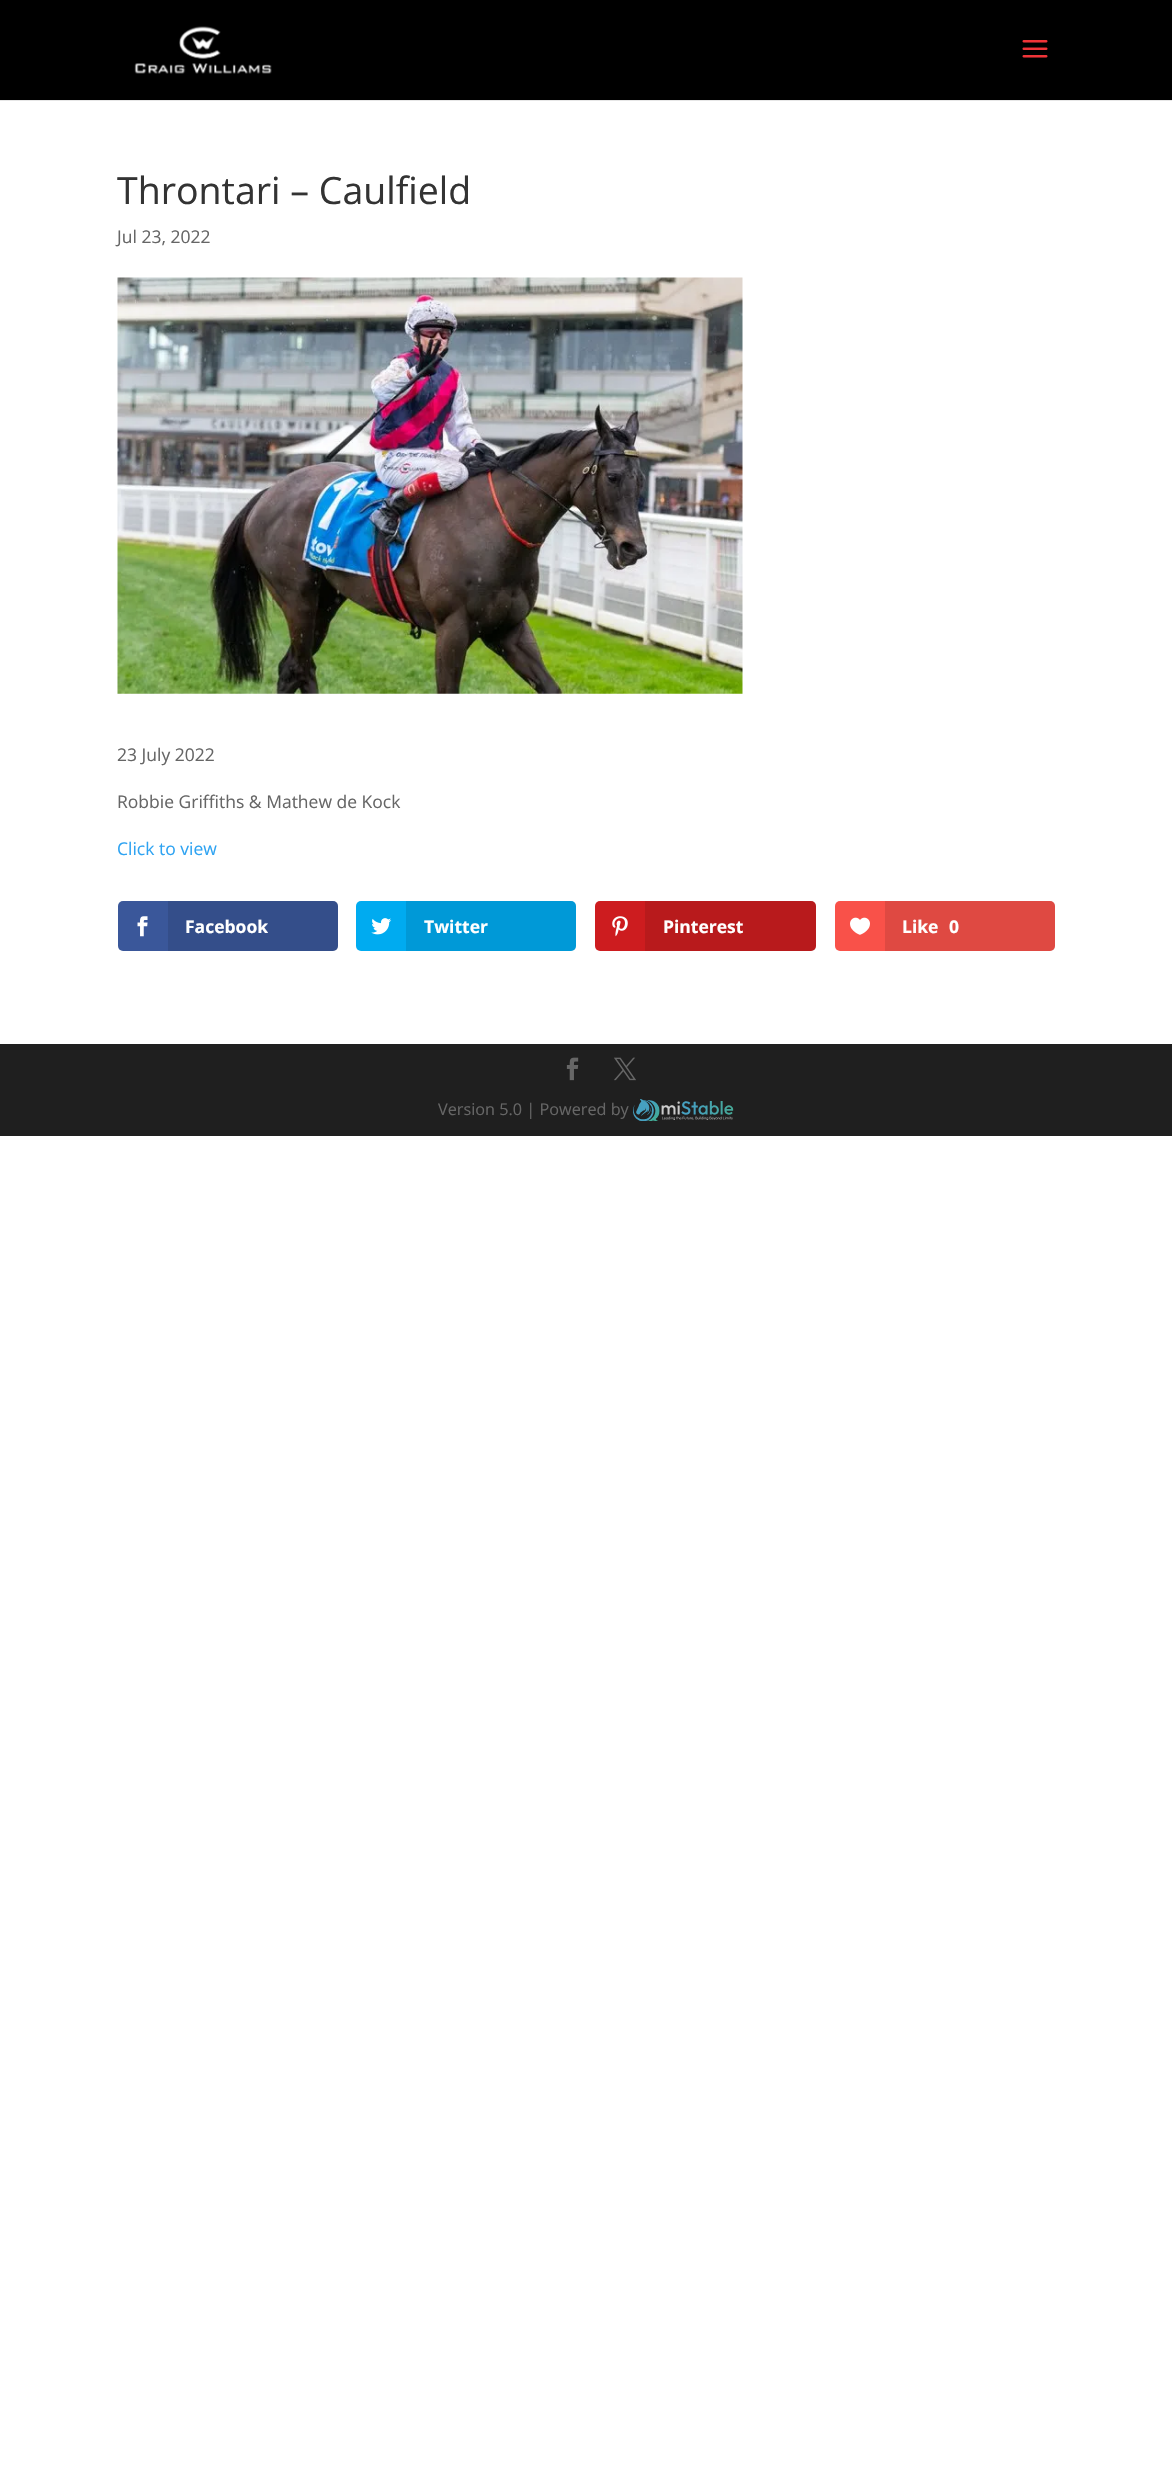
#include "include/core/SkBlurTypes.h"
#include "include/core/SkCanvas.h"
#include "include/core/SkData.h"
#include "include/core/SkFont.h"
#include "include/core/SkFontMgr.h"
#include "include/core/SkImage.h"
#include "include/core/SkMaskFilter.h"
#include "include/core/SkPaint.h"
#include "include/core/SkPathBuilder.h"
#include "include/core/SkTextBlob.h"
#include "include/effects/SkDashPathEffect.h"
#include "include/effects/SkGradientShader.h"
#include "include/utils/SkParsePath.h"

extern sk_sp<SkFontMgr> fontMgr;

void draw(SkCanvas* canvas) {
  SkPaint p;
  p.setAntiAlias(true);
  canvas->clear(SK_ColorWHITE);
  p.setColor(SkColorSetRGB(230, 230, 230));
  canvas->drawPath(SkPathBuilder().moveTo(0, 100).lineTo(0, 101).lineTo(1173, 101).lineTo(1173, 1).lineTo(1172, 1).lineTo(1172, 100).close().detach(), p);
  p.setColor(SK_ColorBLACK);
  canvas->drawRect(SkRect::MakeLTRB(0, 0, 1172, 100), p);
  canvas->drawImageRect(SkImages::DeferredFromEncodedData(SkData::MakeFromFileName("images/1.png")), SkRect::MakeLTRB(134, 26, 272, 74), SkSamplingOptions());
  canvas->drawImageRect(SkImages::DeferredFromEncodedData(SkData::MakeFromFileName("images/2.png")), SkRect::MakeLTRB(1022, 40, 1048, 58), SkSamplingOptions());
  canvas->drawImageRect(SkImages::DeferredFromEncodedData(SkData::MakeFromFileName("images/3.png")), SkRect::MakeLTRB(117, 277, 743, 694), SkSamplingOptions());
  p.setColor(SkColorSetRGB(58, 87, 154));
  canvas->drawRoundRect(SkRect::MakeLTRB(118, 901, 338, 951), 5, 5, p);
  canvas->drawImageRect(SkImages::DeferredFromEncodedData(SkData::MakeFromFileName("images/4.png")), SkRect::MakeLTRB(137, 916, 148, 937), SkSamplingOptions());
  p.setColor(SkColorSetARGB(26, 0, 0, 0));
  canvas->drawPath(SkPathBuilder().moveTo(168, 901).lineTo(333, 901).cubicTo(336, 901, 338, 903, 338, 906).lineTo(338, 946).cubicTo(338, 949, 336, 951, 333, 951).lineTo(168, 951).close().detach(), p);
  p.setColor(SkColorSetRGB(0, 171, 240));
  canvas->drawRoundRect(SkRect::MakeLTRB(356, 901, 576, 951), 5, 5, p);
  canvas->drawImageRect(SkImages::DeferredFromEncodedData(SkData::MakeFromFileName("images/5.png")), SkRect::MakeLTRB(371, 918, 392, 935), SkSamplingOptions());
  p.setColor(SkColorSetARGB(26, 0, 0, 0));
  canvas->drawPath(SkPathBuilder().moveTo(406, 901).lineTo(571, 901).cubicTo(574, 901, 576, 903, 576, 906).lineTo(576, 946).cubicTo(576, 949, 574, 951, 571, 951).lineTo(406, 951).close().detach(), p);
  p.setColor(SkColorSetRGB(205, 28, 31));
  canvas->drawRoundRect(SkRect::MakeLTRB(595, 901, 816, 951), 5, 5, p);
  canvas->drawImageRect(SkImages::DeferredFromEncodedData(SkData::MakeFromFileName("images/6.png")), SkRect::MakeLTRB(612, 916, 628, 937), SkSamplingOptions());
  p.setColor(SkColorSetARGB(26, 0, 0, 0));
  canvas->drawPath(SkPathBuilder().moveTo(645, 901).lineTo(811, 901).cubicTo(814, 901, 816, 903, 816, 906).lineTo(816, 946).cubicTo(816, 949, 814, 951, 811, 951).lineTo(645, 951).close().detach(), p);
  p.setColor(SkColorSetRGB(249, 81, 73));
  canvas->drawRoundRect(SkRect::MakeLTRB(835, 901, 1055, 951), 5, 5, p);
  canvas->drawImageRect(SkImages::DeferredFromEncodedData(SkData::MakeFromFileName("images/7.png")), SkRect::MakeLTRB(850, 917, 870, 935), SkSamplingOptions());
  p.setColor(SkColorSetARGB(26, 0, 0, 0));
  canvas->drawPath(SkPathBuilder().moveTo(885, 901).lineTo(1050, 901).cubicTo(1053, 901, 1055, 903, 1055, 906).lineTo(1055, 946).cubicTo(1055, 949, 1053, 951, 1050, 951).lineTo(885, 951).close().detach(), p);
  p.setColor(SkColorSetRGB(31, 31, 31));
  canvas->drawRect(SkRect::MakeLTRB(0, 1044, 1172, 1136), p);
  canvas->drawImageRect(SkImages::DeferredFromEncodedData(SkData::MakeFromFileName("images/8.png")), SkRect::MakeLTRB(566, 1057, 579, 1081), SkSamplingOptions());
  canvas->drawImageRect(SkImages::DeferredFromEncodedData(SkData::MakeFromFileName("images/9.png")), SkRect::MakeLTRB(614, 1057, 636, 1081), SkSamplingOptions());
  canvas->drawImageRect(SkImages::DeferredFromEncodedData(SkData::MakeFromFileName("images/10.png")), SkRect::MakeLTRB(633, 1099, 734, 1121), SkSamplingOptions());
  SkFont font1(fontMgr->matchFamilyStyle("Open Sans", SkFontStyle::Normal()), 37.5f);
  font1.setSubpixel(true);
  p.setColor(SkColorSetRGB(51, 51, 51));
  canvas->drawString("Throntari – Caulfield", 117, 204, font1, p);
  SkFont font2(fontMgr->matchFamilyStyle("Open Sans", SkFontStyle::Normal()), 17.5f);
  font2.setSubpixel(true);
  p.setColor(SkColorSetRGB(102, 102, 102));
  canvas->drawString("Jul 23, 2022", 117, 243, font2, p);
  canvas->drawString("23 July 2022", 117, 761, font2, p);
  canvas->drawString("Robbie Griffiths & Mathew de Kock", 117, 808, font2, p);
  p.setColor(SkColorSetRGB(46, 163, 242));
  canvas->drawString("Click to view", 117, 855, font2, p);
  SkFont font3(fontMgr->matchFamilyStyle("Open Sans", SkFontStyle::Bold()), 17.5f);
  font3.setSubpixel(true);
  p.setColor(SK_ColorWHITE);
  canvas->drawString("Facebook", 185, 933, font3, p);
  canvas->drawString("Twitter", 424, 933, font3, p);
  canvas->drawString("Pinterest", 663, 933, font3, p);
  canvas->drawString("Like", 902, 933, font3, p);
  canvas->drawString("0", 949, 933, font3, p);
  SkFont font4(fontMgr->matchFamilyStyle("Open Sans", SkFontStyle::Normal()), 16.25f);
  font4.setSubpixel(true);
  p.setColor(SkColorSetRGB(102, 102, 102));
  canvas->drawString("Version 5.0 | Powered by", 438, 1115, font4, p);
}
